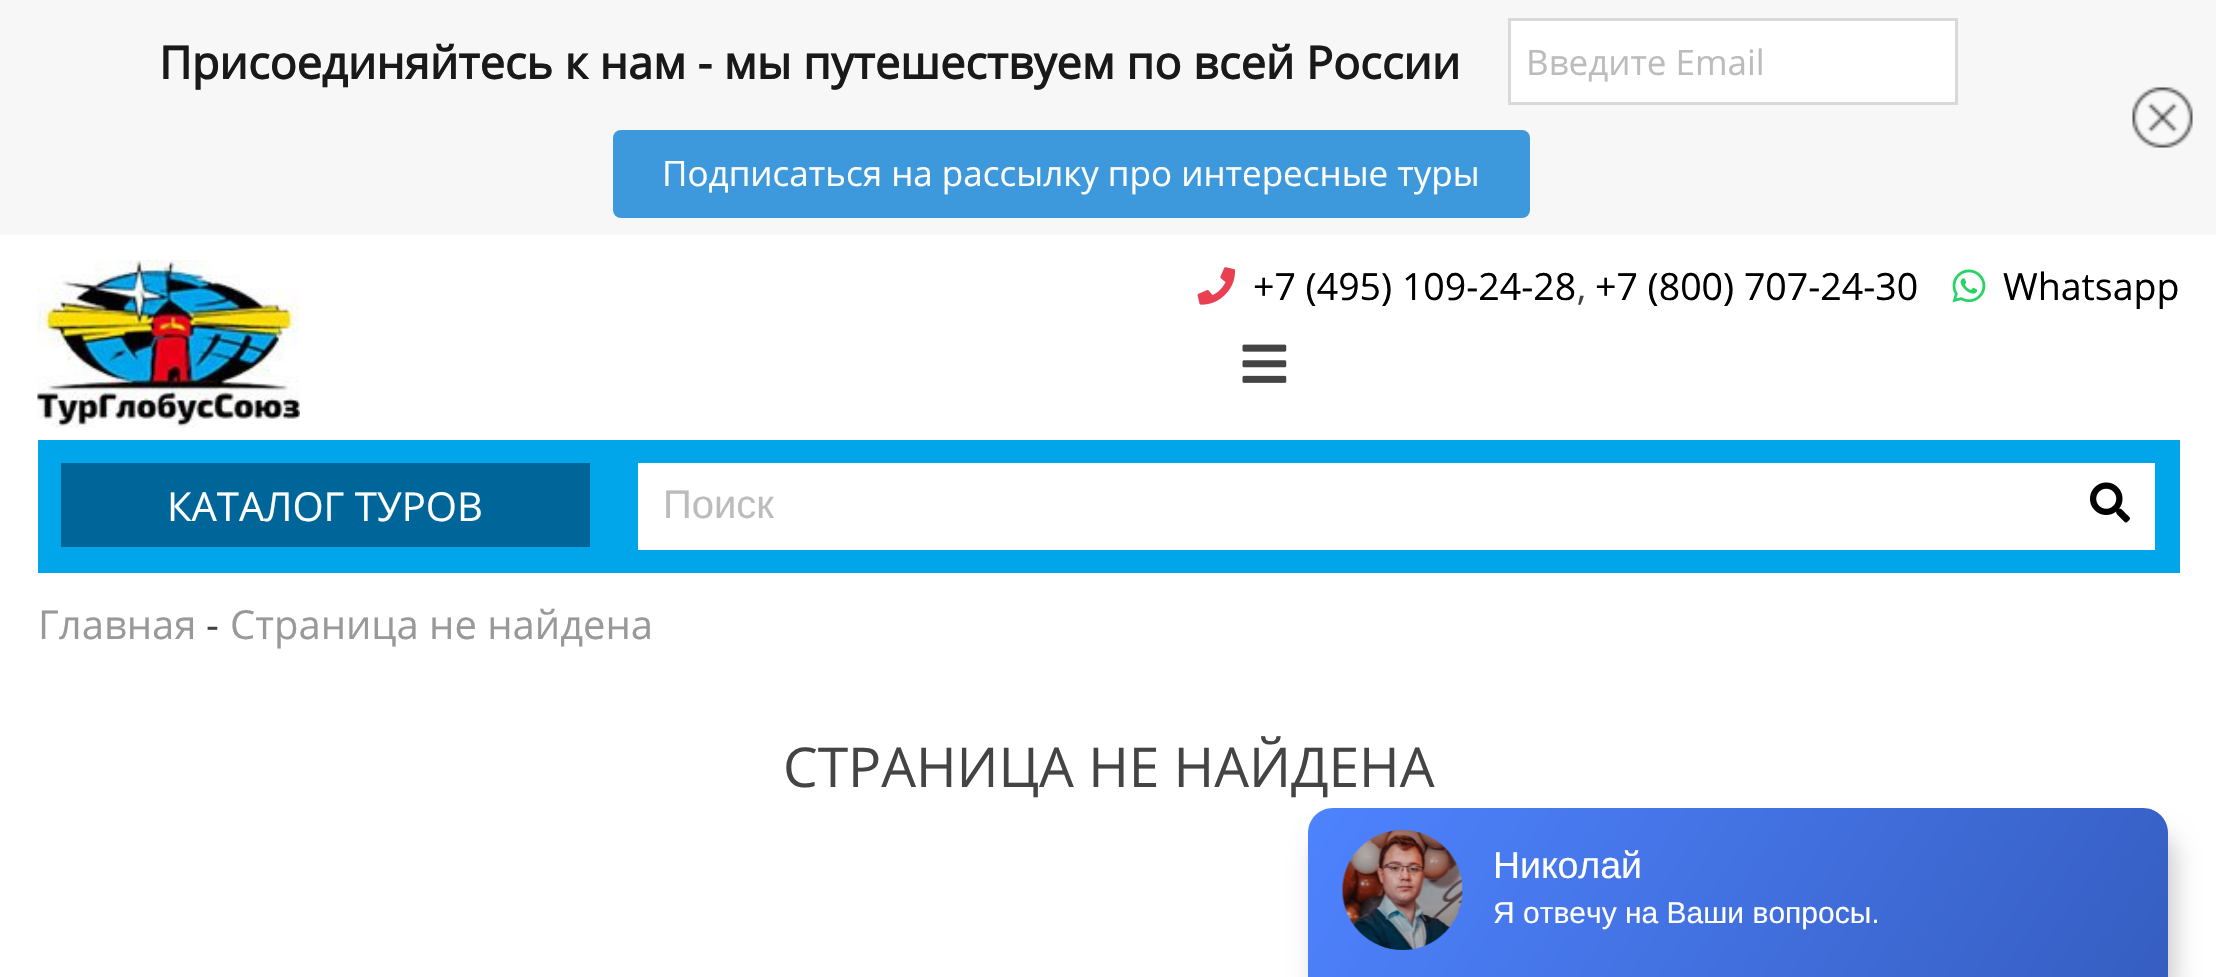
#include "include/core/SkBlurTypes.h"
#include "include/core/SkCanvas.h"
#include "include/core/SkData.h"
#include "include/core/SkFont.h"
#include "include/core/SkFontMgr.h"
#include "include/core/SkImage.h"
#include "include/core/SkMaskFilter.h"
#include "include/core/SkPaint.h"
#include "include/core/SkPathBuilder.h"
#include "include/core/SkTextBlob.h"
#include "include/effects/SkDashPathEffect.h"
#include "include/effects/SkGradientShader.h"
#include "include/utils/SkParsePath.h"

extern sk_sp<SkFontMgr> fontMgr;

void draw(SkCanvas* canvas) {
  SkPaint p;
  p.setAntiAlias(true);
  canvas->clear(SK_ColorWHITE);
  p.setColor(SkColorSetRGB(247, 247, 247));
  canvas->drawRect(SkRect::MakeLTRB(0, 0, 2216, 235), p);
  p.setColor(SK_ColorWHITE);
  canvas->drawRect(SkRect::MakeLTRB(1509.5f, 19.5f, 1956.5f, 103.5f), p);
  p.setStyle(SkPaint::kStroke_Style);
  p.setStrokeWidth(3);
  p.setColor(SkColorSetRGB(217, 217, 217));
  canvas->drawRect(SkRect::MakeLTRB(1509.5f, 19.5f, 1956.5f, 103.5f), p);
  canvas->drawImageRect(SkImages::DeferredFromEncodedData(SkData::MakeFromFileName("images/1.png")), SkRect::MakeLTRB(2132, 87, 2193, 148), SkSamplingOptions());
  p.setStyle(SkPaint::kFill_Style);
  p.setColor(SkColorSetRGB(61, 153, 219));
  canvas->drawRoundRect(SkRect::MakeLTRB(613, 130, 1530, 218), 8, 8, p);
  canvas->drawImageRect(SkImages::DeferredFromEncodedData(SkData::MakeFromFileName("images/2.png")), SkRect::MakeLTRB(37, 260, 300, 428), SkSamplingOptions());
  canvas->drawImageRect(SkImages::DeferredFromEncodedData(SkData::MakeFromFileName("images/3.png")), SkRect::MakeLTRB(1197, 267, 1236, 305), SkSamplingOptions());
  canvas->drawImageRect(SkImages::DeferredFromEncodedData(SkData::MakeFromFileName("images/4.png")), SkRect::MakeLTRB(1952, 269, 1986, 303), SkSamplingOptions());
  canvas->drawImageRect(SkImages::DeferredFromEncodedData(SkData::MakeFromFileName("images/5.png")), SkRect::MakeLTRB(1242, 344, 1287, 383), SkSamplingOptions());
  p.setColor(SkColorSetRGB(0, 165, 234));
  canvas->drawRect(SkRect::MakeLTRB(38, 440, 2180, 573), p);
  p.setColor(SkColorSetRGB(0, 102, 153));
  canvas->drawRect(SkRect::MakeLTRB(61, 463, 590, 547), p);
  p.setColor(SK_ColorWHITE);
  canvas->drawRect(SkRect::MakeLTRB(638, 463, 2155, 550), p);
  canvas->drawImageRect(SkImages::DeferredFromEncodedData(SkData::MakeFromFileName("images/6.png")), SkRect::MakeLTRB(2090, 482, 2130, 523), SkSamplingOptions());
  p.setColor(SkColorSetARGB(51, 0, 0, 0));
  p.setMaskFilter(SkMaskFilter::MakeBlur(kNormal_SkBlurStyle, 12.5f));
  canvas->drawRoundRect(SkRect::MakeLTRB(1315, 833, 2175, 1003), 25, 25, p);
  p.setMaskFilter(nullptr);
  {
    const SkColor colors[] = {SkColorSetRGB(54, 94, 193), SkColorSetRGB(78, 131, 255)};
    const float stops[] = {0, 1};
    const SkPoint ends[] = {{2079, 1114}, {1396, 671}};
    p.setShader(SkGradientShader::MakeLinear(ends, colors, stops, 2, SkTileMode::kClamp));
    p.setAlpha(255);
  }
  canvas->drawPath(SkPathBuilder().moveTo(1333, 808).lineTo(2143, 808).cubicTo(2157, 808, 2168, 819, 2168, 833).lineTo(2168, 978).lineTo(1308, 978).lineTo(1308, 833).cubicTo(1308, 819, 1319, 808, 1333, 808).close().detach(), p);
  canvas->drawImageRect(SkImages::DeferredFromEncodedData(SkData::MakeFromFileName("images/7.png")), SkRect::MakeLTRB(1342, 830, 1463, 950), SkSamplingOptions());
  SkFont font1(fontMgr->matchFamilyStyle("Open Sans", SkFontStyle::Bold()), 45);
  font1.setSubpixel(true);
  p.setShader(nullptr);
  p.setColor(SkColorSetRGB(25, 25, 25));
  canvas->drawString("Присоединяйтесь к нам - мы путешествуем по всей России", 159, 79, font1, p);
  SkFont font2(fontMgr->matchFamilyStyle("Open Sans", SkFontStyle::Normal()), 35);
  font2.setSubpixel(true);
  p.setColor(SkColorSetRGB(188, 188, 188));
  canvas->drawString("Введите Email", 1526, 75, font2, p);
  SkFont font3(fontMgr->matchFamilyStyle("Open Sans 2", SkFontStyle::Normal()), 35);
  font3.setSubpixel(true);
  p.setColor(SK_ColorWHITE);
  canvas->drawString("Подписаться на рассылку про интересные туры", 662, 186, font3, p);
  SkFont font4(fontMgr->matchFamilyStyle("Open Sans", SkFontStyle::Normal()), 37.5f);
  font4.setSubpixel(true);
  p.setColor(SK_ColorBLACK);
  canvas->drawString("+7 (495) 109-24-28", 1253, 300, font4, p);
  p.setColor(SkColorSetRGB(68, 68, 68));
  canvas->drawString(",", 1577, 300, font4, p);
  p.setColor(SK_ColorBLACK);
  canvas->drawString("+7 (800) 707-24-30", 1595, 300, font4, p);
  canvas->drawString("Whatsapp", 2003, 300, font4, p);
  SkFont font5(fontMgr->matchFamilyStyle("Open Sans", SkFontStyle::Normal()), 40);
  font5.setSubpixel(true);
  p.setColor(SK_ColorWHITE);
  canvas->drawString("КАТАЛОГ ТУРОВ", 167, 521, font5, p);
  SkFont font6(fontMgr->matchFamilyStyle("Liberation Sans", SkFontStyle::Normal()), 40);
  font6.setSubpixel(true);
  p.setColor(SkColorSetRGB(188, 188, 188));
  canvas->drawString("Поиск", 663, 518, font6, p);
  p.setColor(SkColorSetRGB(153, 153, 153));
  canvas->drawString("Главная", 38, 639, font5, p);
  p.setColor(SkColorSetRGB(68, 68, 68));
  canvas->drawString("-", 206, 639, font5, p);
  p.setColor(SkColorSetRGB(153, 153, 153));
  canvas->drawString("Страница не найдена", 230, 639, font5, p);
  SkFont font7(fontMgr->matchFamilyStyle("Open Sans", SkFontStyle::Normal()), 55);
  font7.setSubpixel(true);
  p.setColor(SkColorSetRGB(68, 68, 68));
  canvas->drawString("СТРАНИЦА НЕ НАЙДЕНА", 783, 787, font7, p);
  SkFont font8(fontMgr->matchFamilyStyle("Liberation Sans", SkFontStyle::Normal()), 37.5f);
  font8.setSubpixel(true);
  p.setColor(SK_ColorWHITE);
  canvas->drawString("Николай", 1493, 878, font8, p);
  SkFont font9(fontMgr->matchFamilyStyle("Liberation Sans", SkFontStyle::Normal()), 30);
  font9.setSubpixel(true);
  canvas->drawString("Я отвечу на Ваши вопросы.", 1493, 923, font9, p);
}
